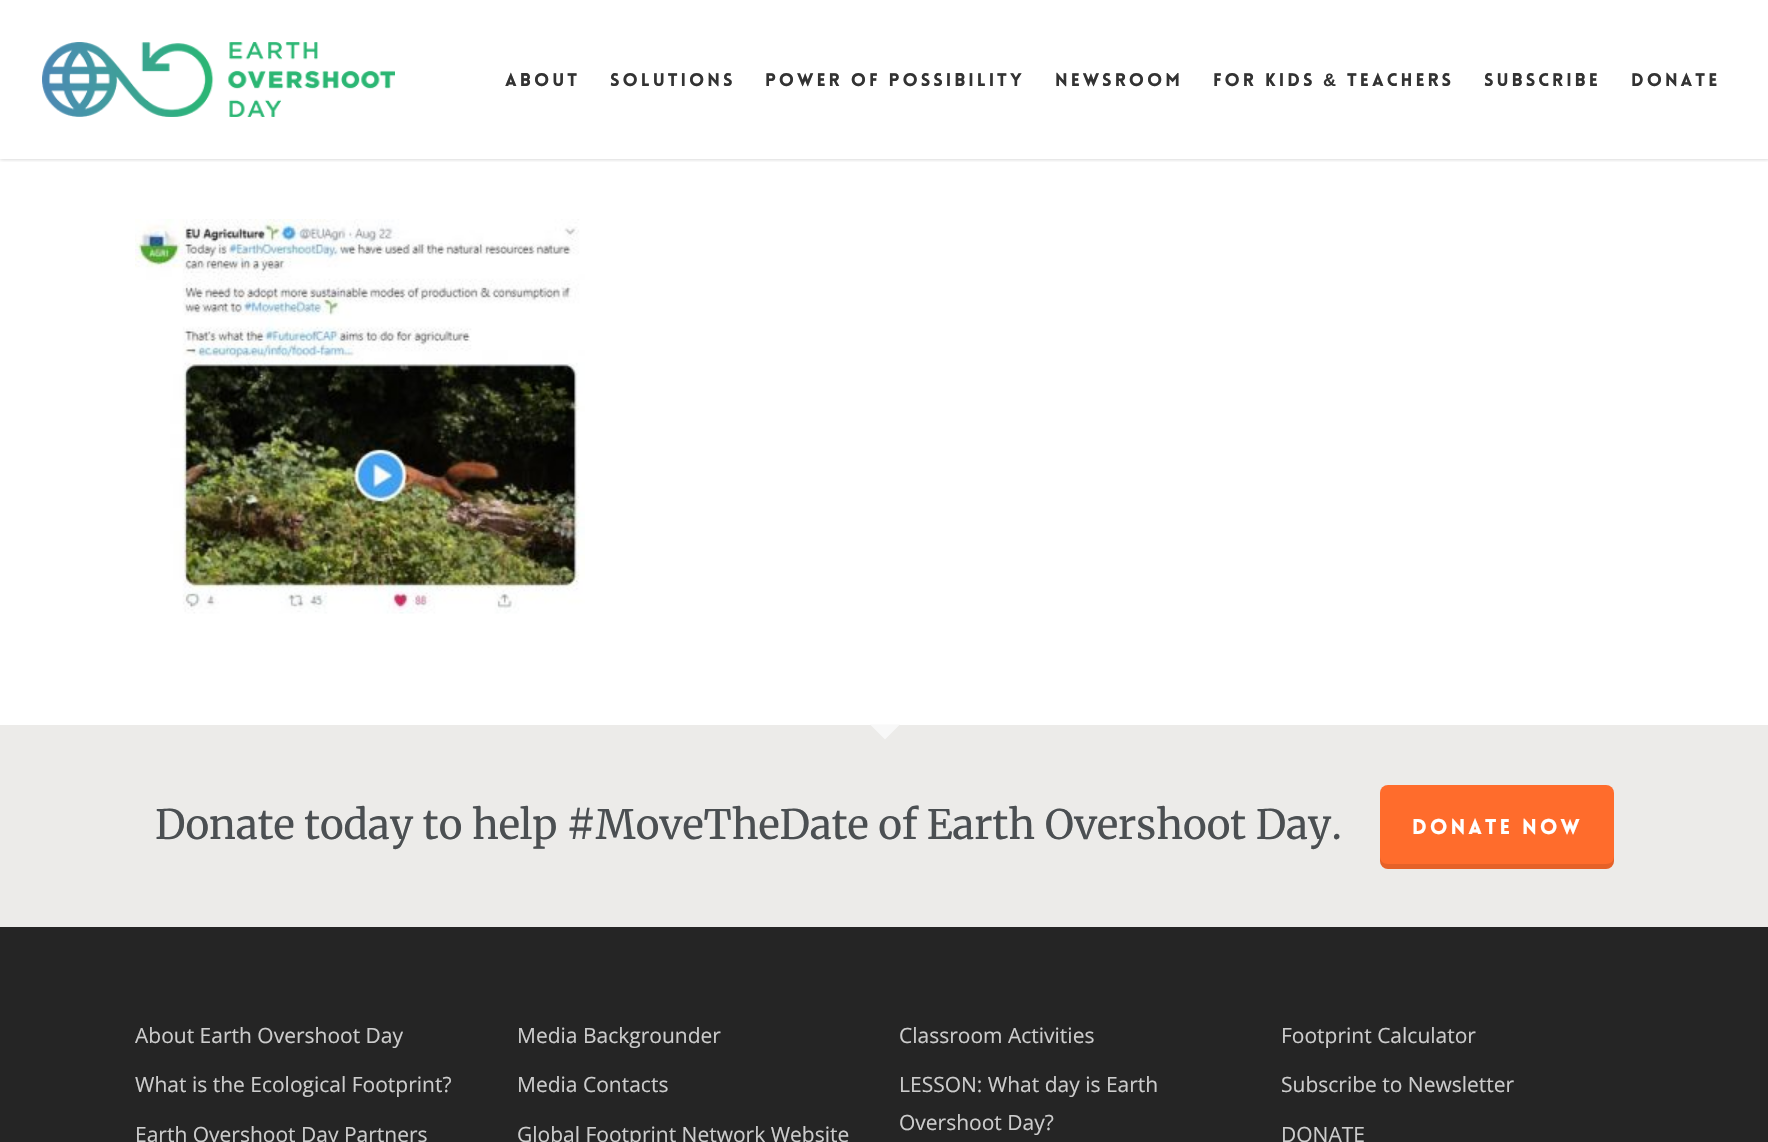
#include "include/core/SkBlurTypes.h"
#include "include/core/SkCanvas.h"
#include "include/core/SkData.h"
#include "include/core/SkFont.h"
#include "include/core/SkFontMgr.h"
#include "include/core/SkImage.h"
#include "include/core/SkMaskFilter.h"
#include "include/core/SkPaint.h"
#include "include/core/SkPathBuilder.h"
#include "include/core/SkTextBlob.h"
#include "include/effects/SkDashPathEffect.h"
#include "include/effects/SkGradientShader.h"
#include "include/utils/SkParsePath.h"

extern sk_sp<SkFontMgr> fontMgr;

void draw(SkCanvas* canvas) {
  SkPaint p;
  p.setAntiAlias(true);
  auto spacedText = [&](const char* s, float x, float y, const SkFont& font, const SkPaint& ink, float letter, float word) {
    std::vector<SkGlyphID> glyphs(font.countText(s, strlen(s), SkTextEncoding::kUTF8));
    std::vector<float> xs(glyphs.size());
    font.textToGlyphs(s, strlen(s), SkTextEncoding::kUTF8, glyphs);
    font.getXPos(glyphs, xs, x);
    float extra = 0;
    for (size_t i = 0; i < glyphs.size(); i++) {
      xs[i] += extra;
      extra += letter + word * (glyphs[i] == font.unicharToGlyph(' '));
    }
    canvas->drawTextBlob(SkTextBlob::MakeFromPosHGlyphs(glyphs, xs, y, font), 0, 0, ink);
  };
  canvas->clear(SK_ColorWHITE);
  canvas->save();
  canvas->clipRect(SkRect::MakeLTRB(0, 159, 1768, 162));
  p.setColor(SkColorSetARGB(56, 0, 0, 0));
  p.setMaskFilter(SkMaskFilter::MakeBlur(kNormal_SkBlurStyle, 2));
  canvas->drawRect(SkRect::MakeLTRB(0, 0, 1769, 159), p);
  p.setMaskFilter(nullptr);
  canvas->restore();
  canvas->drawImageRect(SkImages::DeferredFromEncodedData(SkData::MakeFromFileName("images/1.png")), SkRect::MakeLTRB(42, 42, 395, 117), SkSamplingOptions());
  canvas->drawImageRect(SkImages::DeferredFromEncodedData(SkData::MakeFromFileName("images/2.png")), SkRect::MakeLTRB(135, 219, 585, 614), SkSamplingOptions());
  p.setColor(SkColorSetRGB(37, 37, 37));
  canvas->drawRect(SkRect::MakeLTRB(0, 927, 1768, 1142), p);
  p.setColor(SkColorSetRGB(236, 235, 233));
  canvas->drawRect(SkRect::MakeLTRB(0, 725, 1768, 927), p);
  p.setColor(SkColorSetRGB(248, 248, 248));
  canvas->drawPath(SkPathBuilder().moveTo(870, 724.5f).lineTo(900, 724.5f).lineTo(885, 739.5f).close().detach(), p);
  p.setColor(SkColorSetRGB(255, 108, 44));
  canvas->drawRoundRect(SkRect::MakeLTRB(1380, 785, 1614, 869), 8, 8, p);
  p.setColor(SkColorSetARGB(26, 0, 0, 0));
  canvas->drawPath(SkPathBuilder().moveTo(1380, 856).lineTo(1380, 861).cubicTo(1380, 865, 1384, 869, 1388, 869).lineTo(1606, 869).cubicTo(1610, 869, 1614, 865, 1614, 861).lineTo(1614, 856).cubicTo(1614, 861, 1611, 864, 1606, 864).lineTo(1388, 864).cubicTo(1383, 864, 1380, 861, 1380, 856).close().detach(), p);
  SkFont font1(fontMgr->matchFamilyStyle("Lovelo", SkFontStyle(900, SkFontStyle::kNormal_Width, SkFontStyle::kUpright_Slant)), 18);
  font1.setSubpixel(true);
  p.setColor(SkColorSetRGB(51, 51, 51));
  spacedText("About", 505, 86, font1, p, 3, 0);
  spacedText("Solutions", 610, 86, font1, p, 3, 0);
  spacedText("Power of Possibility", 765, 86, font1, p, 3, 0);
  spacedText("Newsroom", 1055, 86, font1, p, 3, 0);
  spacedText("For Kids", 1213, 86, font1, p, 3, 0);
  SkFont font2(fontMgr->matchFamilyStyle("Liberation Sans", SkFontStyle::Bold()), 18);
  font2.setSubpixel(true);
  spacedText("&", 1323, 86, font2, p, 3, 0);
  spacedText("Teachers", 1347, 86, font1, p, 3, 0);
  spacedText("Subscribe", 1484, 86, font1, p, 3, 0);
  spacedText("Donate", 1631, 86, font1, p, 3, 0);
  SkFont font3(fontMgr->matchFamilyStyle("Merriweather", SkFontStyle(300, SkFontStyle::kNormal_Width, SkFontStyle::kUpright_Slant)), 40.5f);
  font3.setSubpixel(true);
  p.setColor(SkColorSetRGB(75, 79, 82));
  canvas->drawString("Donate today to help #MoveTheDate of Earth Overshoot Day.", 155, 839, font3, p);
  SkFont font4(fontMgr->matchFamilyStyle("Lovelo", SkFontStyle(900, SkFontStyle::kNormal_Width, SkFontStyle::kUpright_Slant)), 21);
  font4.setSubpixel(true);
  p.setColor(SK_ColorWHITE);
  spacedText("DONATE NOW", 1412, 834, font4, p, 3, 0);
  SkFont font5(fontMgr->matchFamilyStyle("Open Sans", SkFontStyle::Normal()), 21);
  font5.setSubpixel(true);
  p.setColor(SkColorSetRGB(204, 204, 204));
  canvas->drawString("About Earth Overshoot Day", 135, 1043, font5, p);
  canvas->drawString("What is the Ecological Footprint?", 135, 1092, font5, p);
  canvas->drawString("Earth Overshoot Day Partners", 135, 1142, font5, p);
  canvas->drawString("Media Backgrounder", 517, 1043, font5, p);
  canvas->drawString("Media Contacts", 517, 1092, font5, p);
  canvas->drawString("Global Footprint Network Website", 517, 1142, font5, p);
  canvas->drawString("Classroom Activities", 899, 1043, font5, p);
  canvas->drawString("LESSON: What day is Earth", 899, 1092, font5, p);
  canvas->drawString("Overshoot Day?", 899, 1130, font5, p);
  canvas->drawString("Footprint Calculator", 1281, 1043, font5, p);
  canvas->drawString("Subscribe to Newsletter", 1281, 1092, font5, p);
  canvas->drawString("DONATE", 1281, 1142, font5, p);
}
